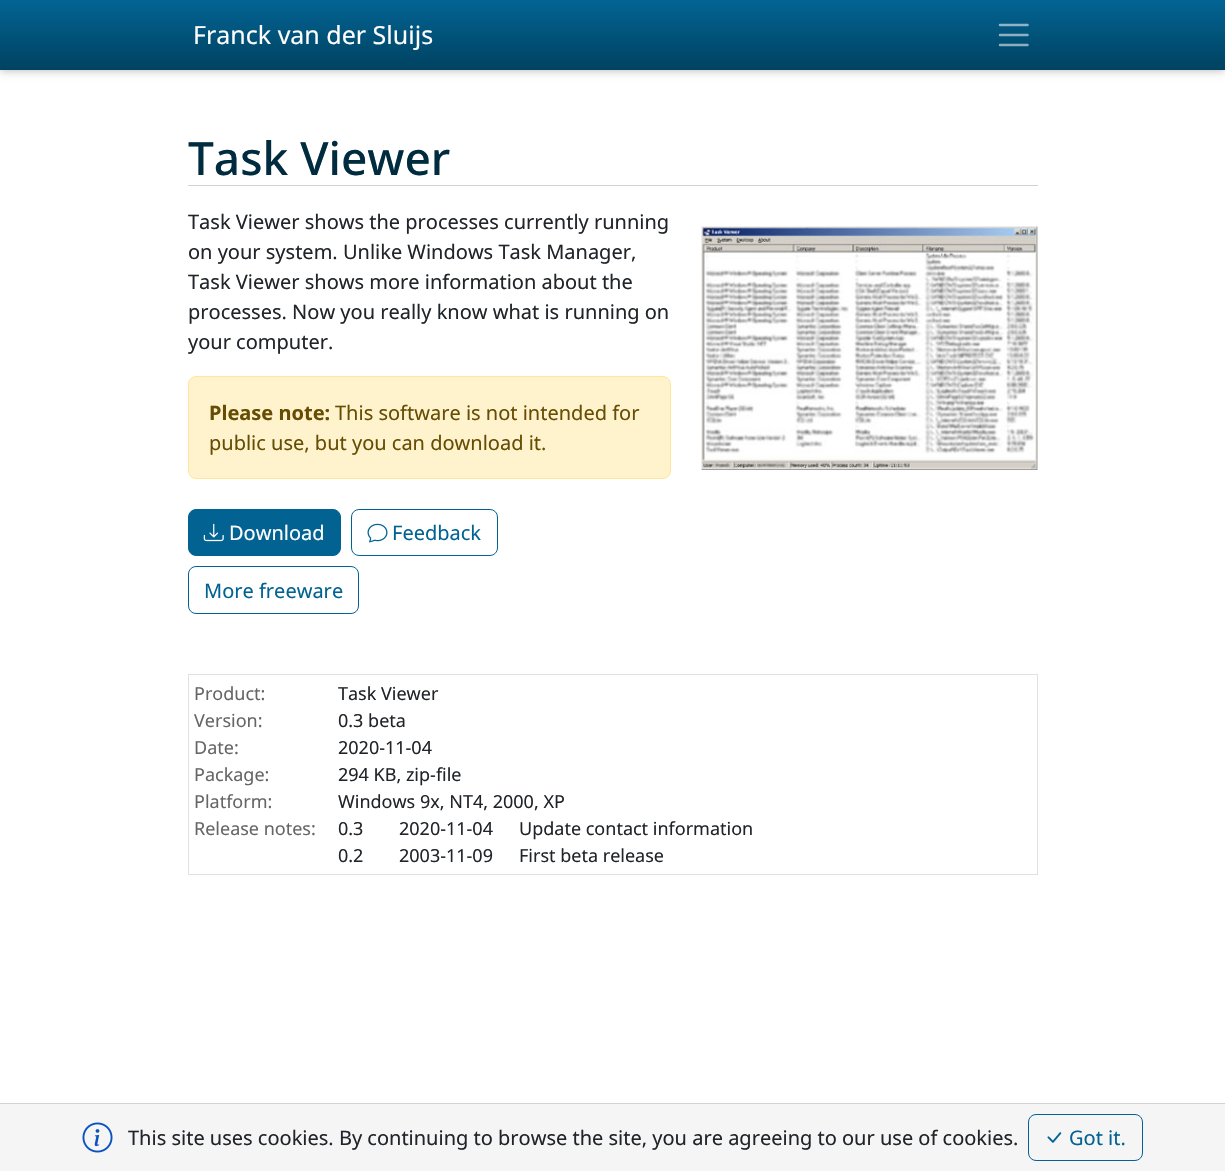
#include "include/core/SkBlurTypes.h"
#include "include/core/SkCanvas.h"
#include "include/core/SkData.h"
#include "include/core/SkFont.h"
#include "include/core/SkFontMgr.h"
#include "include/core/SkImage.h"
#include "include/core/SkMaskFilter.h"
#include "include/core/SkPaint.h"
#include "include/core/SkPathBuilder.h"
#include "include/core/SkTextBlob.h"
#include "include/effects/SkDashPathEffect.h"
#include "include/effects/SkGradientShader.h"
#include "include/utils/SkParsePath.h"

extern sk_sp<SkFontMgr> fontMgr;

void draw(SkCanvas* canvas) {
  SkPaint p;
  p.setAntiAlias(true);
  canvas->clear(SK_ColorWHITE);
  p.setColor(SkColorSetARGB(77, 0, 0, 0));
  p.setMaskFilter(SkMaskFilter::MakeBlur(kNormal_SkBlurStyle, 4.5f));
  canvas->drawRect(SkRect::MakeLTRB(0, 0, 1225, 70), p);
  p.setMaskFilter(nullptr);
  {
    const SkColor colors[] = {SkColorSetRGB(2, 100, 147), SkColorSetRGB(1, 66, 97)};
    const float stops[] = {0, 1};
    const SkPoint ends[] = {{613, 0}, {613, 70}};
    p.setShader(SkGradientShader::MakeLinear(ends, colors, stops, 2, SkTileMode::kClamp));
    p.setAlpha(255);
  }
  canvas->drawRect(SkRect::MakeLTRB(0, 0, 1225, 70), p);
  p.setStyle(SkPaint::kStroke_Style);
  p.setStrokeWidth(2.5f);
  p.setStrokeCap(SkPaint::kRound_Cap);
  p.setShader(nullptr);
  p.setColor(SkColorSetARGB(140, 255, 255, 255));
  canvas->drawPath(SkPathBuilder().moveTo(1000, 25).lineTo(1027.5f, 25).moveTo(1000, 35).lineTo(1027.5f, 35).moveTo(1000, 45).lineTo(1027.5f, 45).detach(), p);
  p.setStyle(SkPaint::kFill_Style);
  p.setColor(SkColorSetRGB(245, 245, 245));
  canvas->drawRect(SkRect::MakeLTRB(0, 1104, 1225, 1171), p);
  p.setColor(SkColorSetRGB(211, 211, 211));
  canvas->drawRect(SkRect::MakeLTRB(0, 1103, 1225, 1104), p);
  canvas->drawImageRect(SkImages::DeferredFromEncodedData(SkData::MakeFromFileName("images/1.png")), SkRect::MakeLTRB(82, 1122, 113, 1153), SkSamplingOptions());
  p.setStyle(SkPaint::kStroke_Style);
  p.setStrokeWidth(1);
  p.setStrokeCap(SkPaint::kButt_Cap);
  p.setColor(SkColorSetRGB(2, 99, 146));
  canvas->drawRoundRect(SkRect::MakeLTRB(1028.5f, 1114.5f, 1142.5f, 1160.5f), 7.5f, 7.5f, p);
  canvas->drawImageRect(SkImages::DeferredFromEncodedData(SkData::MakeFromFileName("images/2.png")), SkRect::MakeLTRB(1047, 1132, 1062, 1143), SkSamplingOptions());
  p.setStyle(SkPaint::kFill_Style);
  p.setColor(SkColorSetRGB(210, 210, 210));
  canvas->drawRect(SkRect::MakeLTRB(188, 185, 1038, 186), p);
  p.setColor(SkColorSetRGB(255, 243, 205));
  canvas->drawRoundRect(SkRect::MakeLTRB(188.5f, 376.5f, 670.5f, 478.5f), 7.5f, 7.5f, p);
  p.setStyle(SkPaint::kStroke_Style);
  p.setColor(SkColorSetRGB(255, 230, 156));
  canvas->drawRoundRect(SkRect::MakeLTRB(188.5f, 376.5f, 670.5f, 478.5f), 7.5f, 7.5f, p);
  p.setStyle(SkPaint::kFill_Style);
  p.setColor(SkColorSetRGB(2, 99, 146));
  canvas->drawRoundRect(SkRect::MakeLTRB(188.5f, 509.5f, 340.5f, 555.5f), 7.5f, 7.5f, p);
  p.setStyle(SkPaint::kStroke_Style);
  canvas->drawRoundRect(SkRect::MakeLTRB(188.5f, 509.5f, 340.5f, 555.5f), 7.5f, 7.5f, p);
  canvas->drawImageRect(SkImages::DeferredFromEncodedData(SkData::MakeFromFileName("images/3.png")), SkRect::MakeLTRB(203, 523, 224, 542), SkSamplingOptions());
  canvas->drawRoundRect(SkRect::MakeLTRB(351.5f, 509.5f, 497.5f, 555.5f), 7.5f, 7.5f, p);
  canvas->drawImageRect(SkImages::DeferredFromEncodedData(SkData::MakeFromFileName("images/4.png")), SkRect::MakeLTRB(367, 523, 388, 543), SkSamplingOptions());
  canvas->drawRoundRect(SkRect::MakeLTRB(188.5f, 566.5f, 358.5f, 613.5f), 7.5f, 7.5f, p);
  canvas->drawImageRect(SkImages::DeferredFromEncodedData(SkData::MakeFromFileName("images/5.png")), SkRect::MakeLTRB(701, 226, 1038, 470), SkSamplingOptions());
  p.setColor(SkColorSetRGB(222, 226, 230));
  canvas->drawRect(SkRect::MakeLTRB(188.5f, 674.5f, 1037.5f, 874.5f), p);
  SkFont font1(fontMgr->matchFamilyStyle("Noto Sans", SkFontStyle::Normal()), 25);
  font1.setSubpixel(true);
  p.setStyle(SkPaint::kFill_Style);
  p.setColor(SK_ColorWHITE);
  canvas->drawString("Franck van der Sluijs", 193, 44, font1, p);
  SkFont font2(fontMgr->matchFamilyStyle("Noto Sans", SkFontStyle::Normal()), 20);
  font2.setSubpixel(true);
  p.setColor(SkColorSetRGB(33, 37, 41));
  canvas->drawString("This site uses cookies. By continuing to browse the site, you are agreeing to our use of cookies.", 128, 1145, font2, p);
  p.setColor(SkColorSetRGB(2, 99, 146));
  canvas->drawString("Got it.", 1069, 1145, font2, p);
  SkFont font3(fontMgr->matchFamilyStyle("Noto Sans", SkFontStyle(500, SkFontStyle::kNormal_Width, SkFontStyle::kUpright_Slant)), 46);
  font3.setSubpixel(true);
  p.setColor(SkColorSetRGB(1, 44, 64));
  canvas->drawString("Task Viewer", 188, 175, font3, p);
  p.setColor(SkColorSetRGB(33, 37, 41));
  canvas->drawString("Task Viewer shows the processes currently running", 188, 229, font2, p);
  canvas->drawString("on your system. Unlike Windows Task Manager,", 188, 259, font2, p);
  canvas->drawString("Task Viewer shows more information about the", 188, 289, font2, p);
  canvas->drawString("processes. Now you really know what is running on", 188, 319, font2, p);
  canvas->drawString("your computer.", 188, 349, font2, p);
  SkFont font4(fontMgr->matchFamilyStyle("Noto Sans", SkFontStyle::Bold()), 20);
  font4.setSubpixel(true);
  p.setColor(SkColorSetRGB(102, 77, 3));
  canvas->drawString("Please note:", 209, 420, font4, p);
  canvas->drawString("This software is not intended for", 335, 420, font2, p);
  canvas->drawString("public use, but you can download it.", 209, 450, font2, p);
  p.setColor(SK_ColorWHITE);
  canvas->drawString("Download", 229, 540, font2, p);
  p.setColor(SkColorSetRGB(2, 99, 146));
  canvas->drawString("Feedback", 392, 540, font2, p);
  canvas->drawString("More freeware", 204, 598, font2, p);
  SkFont font5(fontMgr->matchFamilyStyle("Noto Sans", SkFontStyle::Normal()), 18);
  font5.setSubpixel(true);
  p.setColor(SkColorSetRGB(102, 102, 102));
  canvas->drawString("Product:", 194, 700, font5, p);
  p.setColor(SkColorSetRGB(33, 37, 41));
  canvas->drawString("Task Viewer", 338, 700, font5, p);
  p.setColor(SkColorSetRGB(102, 102, 102));
  canvas->drawString("Version:", 194, 727, font5, p);
  p.setColor(SkColorSetRGB(33, 37, 41));
  canvas->drawString("0.3 beta", 338, 727, font5, p);
  p.setColor(SkColorSetRGB(102, 102, 102));
  canvas->drawString("Date:", 194, 754, font5, p);
  p.setColor(SkColorSetRGB(33, 37, 41));
  canvas->drawString("2020-11-04", 338, 754, font5, p);
  p.setColor(SkColorSetRGB(102, 102, 102));
  canvas->drawString("Package:", 194, 781, font5, p);
  p.setColor(SkColorSetRGB(33, 37, 41));
  canvas->drawString("294 KB, zip-file", 338, 781, font5, p);
  p.setColor(SkColorSetRGB(102, 102, 102));
  canvas->drawString("Platform:", 194, 808, font5, p);
  p.setColor(SkColorSetRGB(33, 37, 41));
  canvas->drawString("Windows 9x, NT4, 2000, XP", 338, 808, font5, p);
  p.setColor(SkColorSetRGB(102, 102, 102));
  canvas->drawString("Release notes:", 194, 835, font5, p);
  p.setColor(SkColorSetRGB(33, 37, 41));
  canvas->drawString("0.3", 338, 835, font5, p);
  canvas->drawString("2020-11-04", 399, 835, font5, p);
  canvas->drawString("Update contact information", 519, 835, font5, p);
  canvas->drawString("0.2", 338, 862, font5, p);
  canvas->drawString("2003-11-09", 399, 862, font5, p);
  canvas->drawString("First beta release", 519, 862, font5, p);
}
